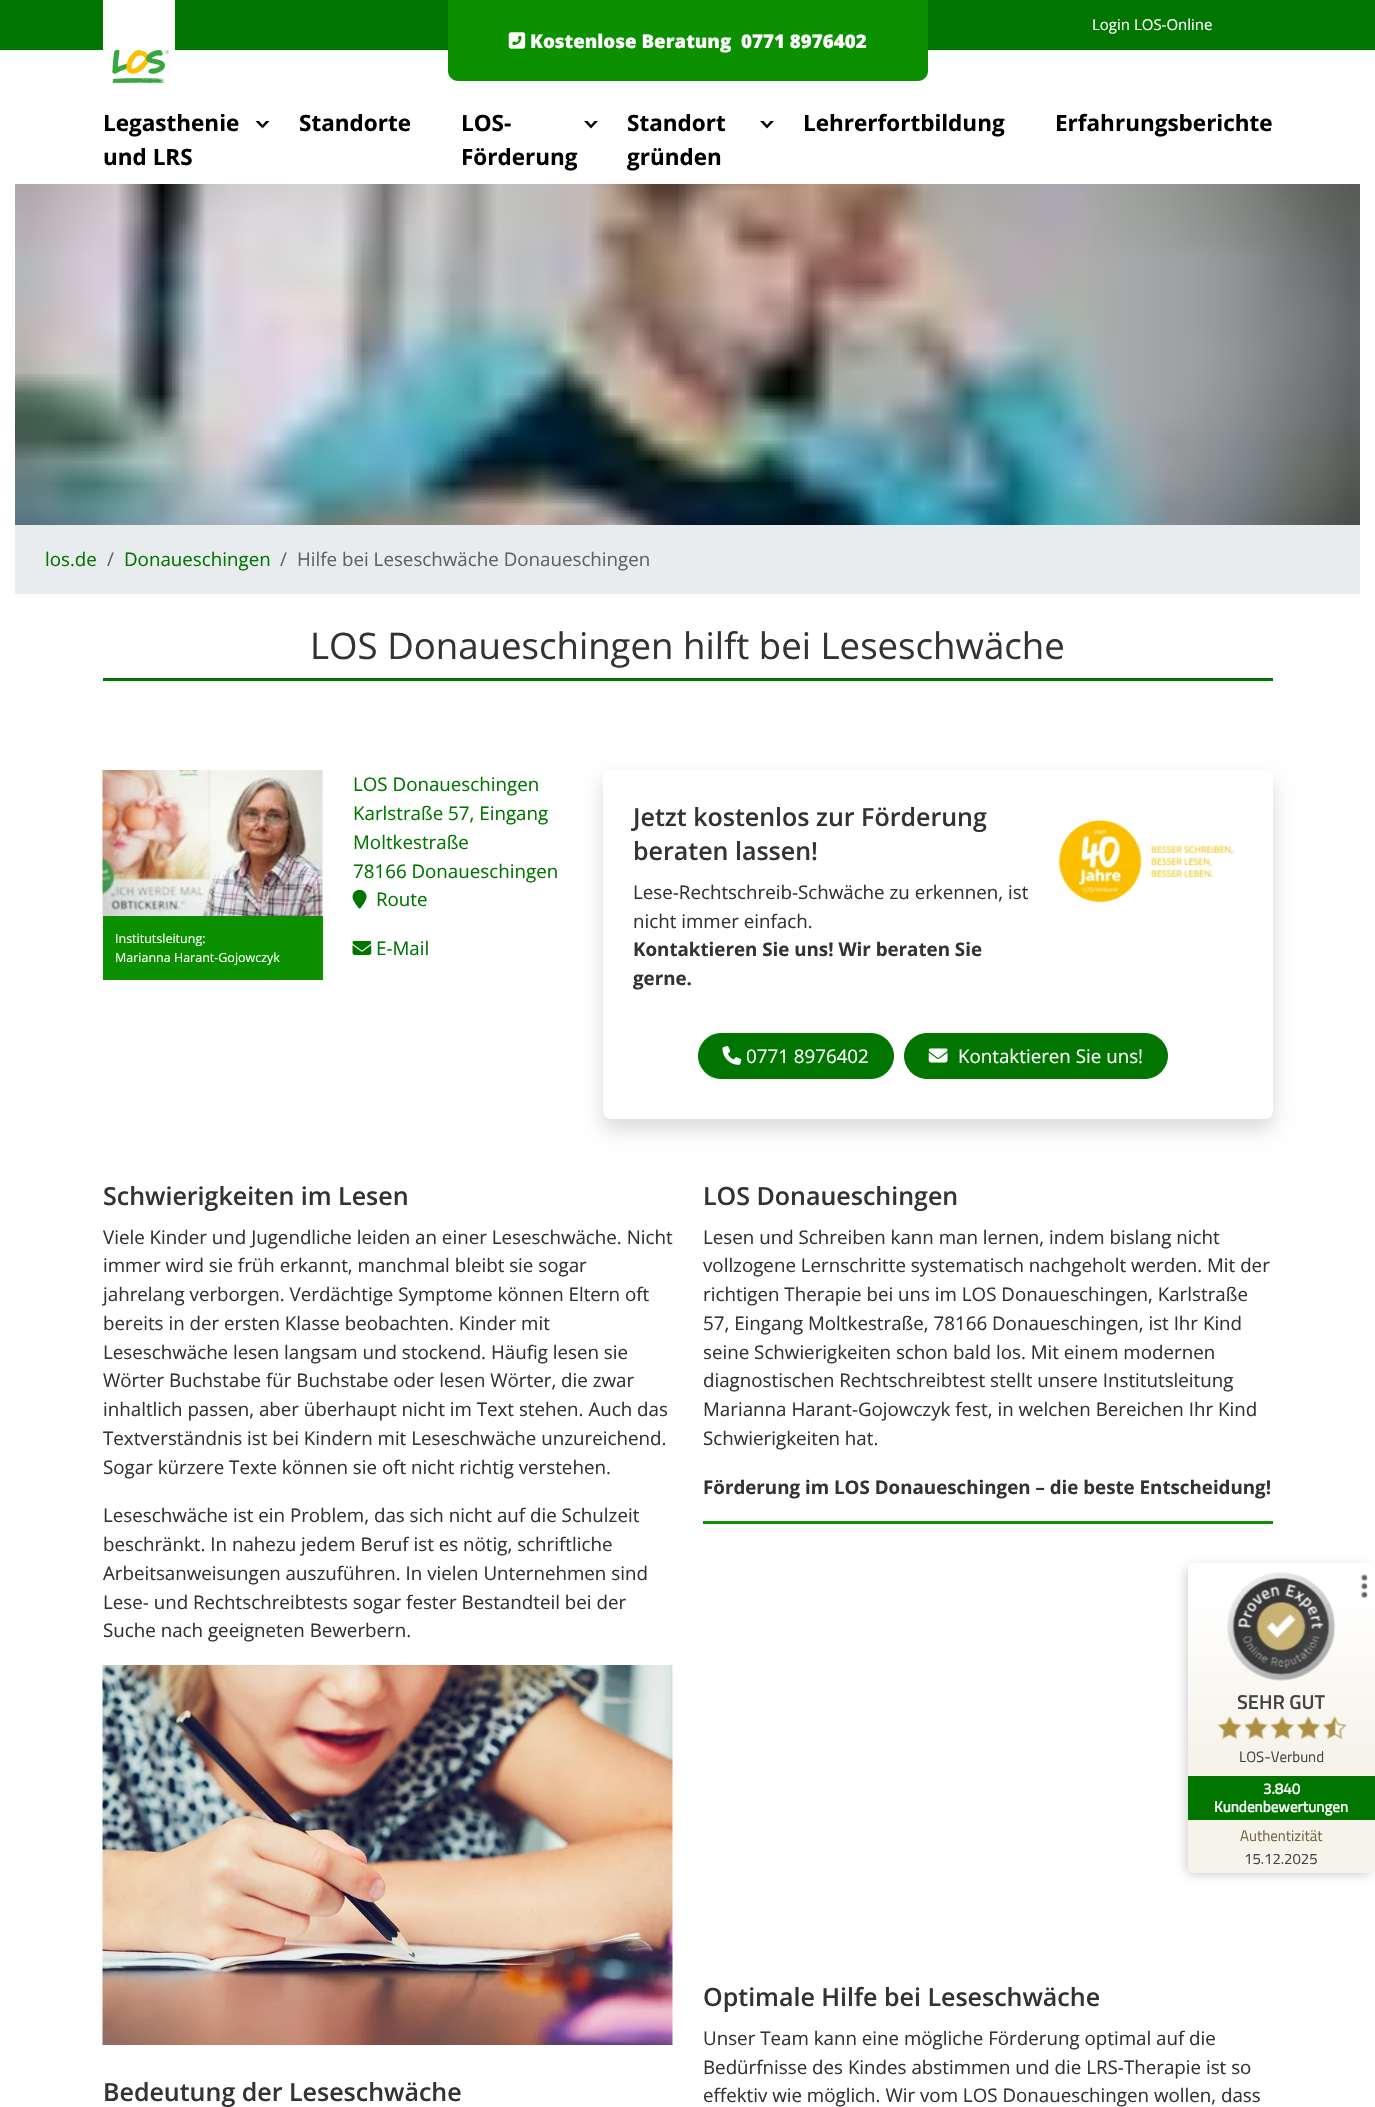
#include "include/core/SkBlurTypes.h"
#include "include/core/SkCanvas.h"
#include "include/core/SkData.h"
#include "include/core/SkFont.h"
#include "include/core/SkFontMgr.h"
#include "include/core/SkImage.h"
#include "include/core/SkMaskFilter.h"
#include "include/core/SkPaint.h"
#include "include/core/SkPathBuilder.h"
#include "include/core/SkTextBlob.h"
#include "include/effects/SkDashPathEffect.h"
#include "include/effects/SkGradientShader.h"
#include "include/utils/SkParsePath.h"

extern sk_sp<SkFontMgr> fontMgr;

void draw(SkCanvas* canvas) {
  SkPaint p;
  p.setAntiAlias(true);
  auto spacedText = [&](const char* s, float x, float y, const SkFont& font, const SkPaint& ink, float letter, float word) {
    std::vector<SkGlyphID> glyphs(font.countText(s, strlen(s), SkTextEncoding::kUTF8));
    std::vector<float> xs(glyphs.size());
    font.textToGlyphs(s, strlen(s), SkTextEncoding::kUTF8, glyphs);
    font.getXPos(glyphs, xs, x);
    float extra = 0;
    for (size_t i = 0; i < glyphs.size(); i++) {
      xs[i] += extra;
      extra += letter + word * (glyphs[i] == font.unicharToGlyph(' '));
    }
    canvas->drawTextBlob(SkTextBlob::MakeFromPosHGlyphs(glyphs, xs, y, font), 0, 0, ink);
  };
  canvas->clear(SK_ColorWHITE);
  p.setColor(SkColorSetRGB(0, 117, 0));
  canvas->drawRect(SkRect::MakeLTRB(0, 0, 1375, 50), p);
  canvas->drawImageRect(SkImages::DeferredFromEncodedData(SkData::MakeFromFileName("images/1.png")), SkRect::MakeLTRB(103, 0, 175, 84), SkSamplingOptions());
  p.setColor(SkColorSetRGB(11, 144, 0));
  canvas->drawPath(SkPathBuilder().moveTo(448, 0).lineTo(928, 0).lineTo(928, 71).cubicTo(928, 76.5f, 923.5f, 81, 918, 81).lineTo(458, 81).cubicTo(452.5f, 81, 448, 76.5f, 448, 71).close().detach(), p);
  canvas->drawImageRect(SkImages::DeferredFromEncodedData(SkData::MakeFromFileName("images/2.png")), SkRect::MakeLTRB(508, 32, 526, 49), SkSamplingOptions());
  p.setColor(SK_ColorBLACK);
  canvas->drawPath(SkPathBuilder().moveTo(269.5f, 121).lineTo(262.5f, 128.5f).lineTo(262.5f, 125).lineTo(266, 121).close().detach(), p);
  canvas->drawPath(SkPathBuilder().moveTo(262.5f, 128.5f).lineTo(255.5f, 121).lineTo(259, 121).lineTo(262.5f, 125).close().detach(), p);
  canvas->drawPath(SkPathBuilder().moveTo(598, 121).lineTo(591, 128.5f).lineTo(591, 125).lineTo(594.5f, 121).close().moveTo(591, 128.5f).lineTo(584, 121).lineTo(587.5f, 121).lineTo(591, 125).close().detach(), p);
  canvas->drawPath(SkPathBuilder().moveTo(774, 121).lineTo(767, 128.5f).lineTo(767, 125).lineTo(770.5f, 121).close().moveTo(767, 128.5f).lineTo(760, 121).lineTo(763.5f, 121).lineTo(767, 125).close().detach(), p);
  canvas->drawImageRect(SkImages::DeferredFromEncodedData(SkData::MakeFromFileName("images/3.png")), SkRect::MakeLTRB(15, 184, 1360, 525), SkSamplingOptions());
  p.setColor(SkColorSetRGB(233, 236, 239));
  canvas->drawRect(SkRect::MakeLTRB(15, 525, 1360, 594), p);
  p.setColor(SkColorSetRGB(0, 117, 0));
  canvas->drawRect(SkRect::MakeLTRB(103, 678, 1273, 681), p);
  canvas->drawImageRect(SkImages::DeferredFromEncodedData(SkData::MakeFromFileName("images/4.png")), SkRect::MakeLTRB(102, 770, 323, 917), SkSamplingOptions());
  p.setColor(SkColorSetRGB(11, 144, 0));
  canvas->drawRect(SkRect::MakeLTRB(103, 916, 323, 980), p);
  canvas->drawImageRect(SkImages::DeferredFromEncodedData(SkData::MakeFromFileName("images/5.png")), SkRect::MakeLTRB(352, 889, 367, 909), SkSamplingOptions());
  canvas->drawImageRect(SkImages::DeferredFromEncodedData(SkData::MakeFromFileName("images/6.png")), SkRect::MakeLTRB(352, 940, 372, 955), SkSamplingOptions());
  p.setColor(SkColorSetARGB(38, 0, 0, 0));
  p.setMaskFilter(SkMaskFilter::MakeBlur(kNormal_SkBlurStyle, 10));
  canvas->drawRoundRect(SkRect::MakeLTRB(603, 780, 1273, 1129), 8, 8, p);
  p.setMaskFilter(nullptr);
  p.setColor(SK_ColorWHITE);
  canvas->drawRoundRect(SkRect::MakeLTRB(603, 770, 1273, 1119), 8, 8, p);
  canvas->drawImageRect(SkImages::DeferredFromEncodedData(SkData::MakeFromFileName("images/7.png")), SkRect::MakeLTRB(1058, 820, 1235, 903), SkSamplingOptions());
  p.setColor(SkColorSetRGB(0, 117, 0));
  canvas->drawRoundRect(SkRect::MakeLTRB(698.5f, 1033.5f, 893.5f, 1078.5f), 22.5f, 22.5f, p);
  p.setStyle(SkPaint::kStroke_Style);
  p.setStrokeWidth(1);
  canvas->drawRoundRect(SkRect::MakeLTRB(698.5f, 1033.5f, 893.5f, 1078.5f), 22.5f, 22.5f, p);
  canvas->drawImageRect(SkImages::DeferredFromEncodedData(SkData::MakeFromFileName("images/8.png")), SkRect::MakeLTRB(722, 1046, 742, 1065), SkSamplingOptions());
  p.setStyle(SkPaint::kFill_Style);
  canvas->drawRoundRect(SkRect::MakeLTRB(904.5f, 1033.5f, 1167.5f, 1078.5f), 22.5f, 22.5f, p);
  p.setStyle(SkPaint::kStroke_Style);
  canvas->drawRoundRect(SkRect::MakeLTRB(904.5f, 1033.5f, 1167.5f, 1078.5f), 22.5f, 22.5f, p);
  canvas->drawImageRect(SkImages::DeferredFromEncodedData(SkData::MakeFromFileName("images/9.png")), SkRect::MakeLTRB(928, 1048, 948, 1063), SkSamplingOptions());
  canvas->drawImageRect(SkImages::DeferredFromEncodedData(SkData::MakeFromFileName("images/10.png")), SkRect::MakeLTRB(102, 1665, 673, 2045), SkSamplingOptions());
  p.setStyle(SkPaint::kFill_Style);
  p.setColor(SkColorSetRGB(11, 144, 0));
  canvas->drawRect(SkRect::MakeLTRB(703, 1521, 1273, 1524), p);
  p.setColor(SkColorSetARGB(64, 0, 0, 0));
  p.setMaskFilter(SkMaskFilter::MakeBlur(kNormal_SkBlurStyle, 6));
  canvas->drawRoundRect(SkRect::MakeLTRB(1188, 1568, 1370, 1873), 2.5f, 2.5f, p);
  p.setMaskFilter(nullptr);
  {
    const SkColor colors[] = {SkColorSetRGB(246, 243, 234), SK_ColorWHITE};
    const float stops[] = {0.37f, 0.9f};
    const SkPoint ends[] = {{1281, 1873}, {1281, 1563}};
    p.setShader(SkGradientShader::MakeLinear(ends, colors, stops, 2, SkTileMode::kClamp));
    p.setAlpha(255);
  }
  canvas->drawRoundRect(SkRect::MakeLTRB(1188, 1563, 1375, 1873), 5, 5, p);
  canvas->drawImageRect(SkImages::DeferredFromEncodedData(SkData::MakeFromFileName("images/11.png")), SkRect::MakeLTRB(1227, 1572, 1336, 1681), SkSamplingOptions());
  canvas->drawImageRect(SkImages::DeferredFromEncodedData(SkData::MakeFromFileName("images/12.png")), SkRect::MakeLTRB(1360, 1574, 1368, 1598), SkSamplingOptions());
  canvas->drawImageRect(SkImages::DeferredFromEncodedData(SkData::MakeFromFileName("images/13.png")), SkRect::MakeLTRB(1217, 1716, 1242, 1740), SkSamplingOptions());
  canvas->drawImageRect(SkImages::DeferredFromEncodedData(SkData::MakeFromFileName("images/14.png")), SkRect::MakeLTRB(1244, 1716, 1268, 1740), SkSamplingOptions());
  canvas->drawImageRect(SkImages::DeferredFromEncodedData(SkData::MakeFromFileName("images/15.png")), SkRect::MakeLTRB(1270, 1716, 1295, 1739), SkSamplingOptions());
  canvas->drawImageRect(SkImages::DeferredFromEncodedData(SkData::MakeFromFileName("images/16.png")), SkRect::MakeLTRB(1296, 1716, 1320, 1740), SkSamplingOptions());
  canvas->drawImageRect(SkImages::DeferredFromEncodedData(SkData::MakeFromFileName("images/17.png")), SkRect::MakeLTRB(1322, 1716, 1347, 1740), SkSamplingOptions());
  p.setShader(nullptr);
  p.setColor(SkColorSetRGB(0, 117, 0));
  canvas->drawRect(SkRect::MakeLTRB(1188, 1776, 1375, 1820), p);
  SkFont font1(fontMgr->matchFamilyStyle("Open Sans", SkFontStyle::Normal()), 15);
  font1.setSubpixel(true);
  p.setColor(SK_ColorWHITE);
  canvas->drawString("Login LOS-Online", 1092, 30, font1, p);
  SkFont font2(fontMgr->matchFamilyStyle("Open Sans", SkFontStyle(800, SkFontStyle::kNormal_Width, SkFontStyle::kUpright_Slant)), 18.75f);
  font2.setSubpixel(true);
  canvas->drawString("Kostenlose Beratung", 530, 48, font2, p);
  canvas->drawString("0771 8976402", 741, 48, font2, p);
  SkFont font3(fontMgr->matchFamilyStyle("Open Sans", SkFontStyle::Bold()), 22.5f);
  font3.setSubpixel(true);
  p.setColor(SK_ColorBLACK);
  canvas->drawString("Legasthenie", 103, 131, font3, p);
  canvas->drawString("und LRS", 103, 165, font3, p);
  canvas->drawString("Standorte", 299, 131, font3, p);
  canvas->drawString("LOS-", 461, 131, font3, p);
  canvas->drawString("Förderung", 461, 165, font3, p);
  canvas->drawString("Standort", 627, 131, font3, p);
  canvas->drawString("gründen", 627, 165, font3, p);
  canvas->drawString("Lehrerfortbildung", 803, 131, font3, p);
  canvas->drawString("Erfahrungsberichte", 1055, 131, font3, p);
  SkFont font4(fontMgr->matchFamilyStyle("Open Sans", SkFontStyle::Normal()), 18.75f);
  font4.setSubpixel(true);
  p.setColor(SkColorSetRGB(0, 117, 0));
  canvas->drawString("los.de", 45, 566, font4, p);
  p.setColor(SkColorSetRGB(97, 97, 98));
  canvas->drawString("/", 107, 566, font4, p);
  p.setColor(SkColorSetRGB(0, 117, 0));
  canvas->drawString("Donaueschingen", 124, 566, font4, p);
  p.setColor(SkColorSetRGB(97, 97, 98));
  canvas->drawString("/", 280, 566, font4, p);
  canvas->drawString("Hilfe bei Leseschwäche Donaueschingen", 297, 566, font4, p);
  SkFont font5(fontMgr->matchFamilyStyle("Open Sans", SkFontStyle::Normal()), 36.6f);
  font5.setSubpixel(true);
  p.setColor(SkColorSetRGB(51, 51, 51));
  canvas->drawString("LOS Donaueschingen hilft bei Leseschwäche", 310, 659, font5, p);
  SkFont font6(fontMgr->matchFamilyStyle("Open Sans", SkFontStyle::Normal()), 12.5f);
  font6.setSubpixel(true);
  p.setColor(SK_ColorWHITE);
  canvas->drawString("Institutsleitung:", 115, 943, font6, p);
  canvas->drawString("Marianna Harant-Gojowczyk", 115, 962, font6, p);
  p.setColor(SkColorSetRGB(0, 117, 0));
  canvas->drawString("LOS Donaueschingen", 353, 791, font4, p);
  canvas->drawString("Karlstraße 57, Eingang", 353, 820, font4, p);
  canvas->drawString("Moltkestraße", 353, 849, font4, p);
  canvas->drawString("78166 Donaueschingen", 353, 878, font4, p);
  canvas->drawString("Route", 376, 906, font4, p);
  canvas->drawString("E-Mail", 376, 955, font4, p);
  SkFont font7(fontMgr->matchFamilyStyle("Open Sans", SkFontStyle(600, SkFontStyle::kNormal_Width, SkFontStyle::kUpright_Slant)), 25);
  font7.setSubpixel(true);
  p.setColor(SkColorSetRGB(51, 51, 51));
  canvas->drawString("Jetzt kostenlos zur Förderung", 633, 826, font7, p);
  canvas->drawString("beraten lassen!", 633, 860, font7, p);
  canvas->drawString("Lese-Rechtschreib-Schwäche zu erkennen, ist", 633, 899, font4, p);
  canvas->drawString("nicht immer einfach.", 633, 928, font4, p);
  SkFont font8(fontMgr->matchFamilyStyle("Open Sans", SkFontStyle::Bold()), 18.75f);
  font8.setSubpixel(true);
  canvas->drawString("Kontaktieren Sie uns! Wir beraten Sie", 633, 956, font8, p);
  canvas->drawString("gerne.", 633, 985, font8, p);
  p.setColor(SK_ColorWHITE);
  canvas->drawString("0771 8976402", 746, 1063, font4, p);
  canvas->drawString("Kontaktieren Sie uns!", 958, 1063, font4, p);
  p.setColor(SkColorSetRGB(51, 51, 51));
  canvas->drawString("Schwierigkeiten im Lesen", 103, 1205, font7, p);
  canvas->drawString("Viele Kinder und Jugendliche leiden an einer Leseschwäche. Nicht", 103, 1244, font4, p);
  canvas->drawString("immer wird sie früh erkannt, manchmal bleibt sie sogar", 103, 1272, font4, p);
  canvas->drawString("jahrelang verborgen. Verdächtige Symptome können Eltern oft", 103, 1301, font4, p);
  canvas->drawString("bereits in der ersten Klasse beobachten. Kinder mit", 103, 1330, font4, p);
  canvas->drawString("Leseschwäche lesen langsam und stockend. Häufig lesen sie", 103, 1359, font4, p);
  canvas->drawString("Wörter Buchstabe für Buchstabe oder lesen Wörter, die zwar", 103, 1387, font4, p);
  canvas->drawString("inhaltlich passen, aber überhaupt nicht im Text stehen. Auch das", 103, 1416, font4, p);
  canvas->drawString("Textverständnis ist bei Kindern mit Leseschwäche unzureichend.", 103, 1445, font4, p);
  canvas->drawString("Sogar kürzere Texte können sie oft nicht richtig verstehen.", 103, 1474, font4, p);
  canvas->drawString("Leseschwäche ist ein Problem, das sich nicht auf die Schulzeit", 103, 1522, font4, p);
  canvas->drawString("beschränkt. In nahezu jedem Beruf ist es nötig, schriftliche", 103, 1551, font4, p);
  canvas->drawString("Arbeitsanweisungen auszuführen. In vielen Unternehmen sind", 103, 1580, font4, p);
  canvas->drawString("Lese- und Rechtschreibtests sogar fester Bestandteil bei der", 103, 1609, font4, p);
  canvas->drawString("Suche nach geeigneten Bewerbern.", 103, 1637, font4, p);
  canvas->drawString("Bedeutung der Leseschwäche", 103, 2101, font7, p);
  canvas->drawString("LOS Donaueschingen", 703, 1205, font7, p);
  canvas->drawString("Lesen und Schreiben kann man lernen, indem bislang nicht", 703, 1244, font4, p);
  canvas->drawString("vollzogene Lernschritte systematisch nachgeholt werden. Mit der", 703, 1272, font4, p);
  canvas->drawString("richtigen Therapie bei uns im LOS Donaueschingen, Karlstraße", 703, 1301, font4, p);
  canvas->drawString("57, Eingang Moltkestraße, 78166 Donaueschingen, ist Ihr Kind", 703, 1330, font4, p);
  canvas->drawString("seine Schwierigkeiten schon bald los. Mit einem modernen", 703, 1359, font4, p);
  canvas->drawString("diagnostischen Rechtschreibtest stellt unsere Institutsleitung", 703, 1387, font4, p);
  canvas->drawString("Marianna Harant-Gojowczyk fest, in welchen Bereichen Ihr Kind", 703, 1416, font4, p);
  canvas->drawString("Schwierigkeiten hat.", 703, 1445, font4, p);
  canvas->drawString("Förderung im LOS Donaueschingen – die beste Entscheidung!", 703, 1494, font8, p);
  canvas->drawString("Optimale Hilfe bei Leseschwäche", 703, 2006, font7, p);
  canvas->drawString("Unser Team kann eine mögliche Förderung optimal auf die", 703, 2045, font4, p);
  canvas->drawString("Bedürfnisse des Kindes abstimmen und die LRS-Therapie ist so", 703, 2074, font4, p);
  canvas->drawString("effektiv wie möglich. Wir vom LOS Donaueschingen wollen, dass", 703, 2102, font4, p);
  SkFont font9(fontMgr->matchFamilyStyle("Titillium Web", SkFontStyle(600, SkFontStyle::kNormal_Width, SkFontStyle::kUpright_Slant)), 20);
  font9.setSubpixel(true);
  p.setColor(SkColorSetRGB(68, 68, 68));
  canvas->drawString("SEHR GUT", 1237, 1709, font9, p);
  SkFont font10(fontMgr->matchFamilyStyle("Titillium Web", SkFontStyle::Normal()), 15);
  font10.setSubpixel(true);
  canvas->drawString("LOS-Verbund", 1239, 1762, font10, p);
  SkFont font11(fontMgr->matchFamilyStyle("Titillium Web", SkFontStyle::Bold()), 15);
  font11.setSubpixel(true);
  p.setColor(SK_ColorWHITE);
  spacedText("3.840", 1263, 1794, font11, p, 0.1f, 0);
  spacedText("Kundenbewertungen", 1214, 1812, font11, p, 0.1f, 0);
  p.setColor(SkColorSetRGB(114, 101, 66));
  canvas->drawString("Authentizität", 1240, 1841, font10, p);
  p.setColor(SkColorSetRGB(68, 68, 68));
  canvas->drawString("15.12.2025", 1244, 1864, font10, p);
}
